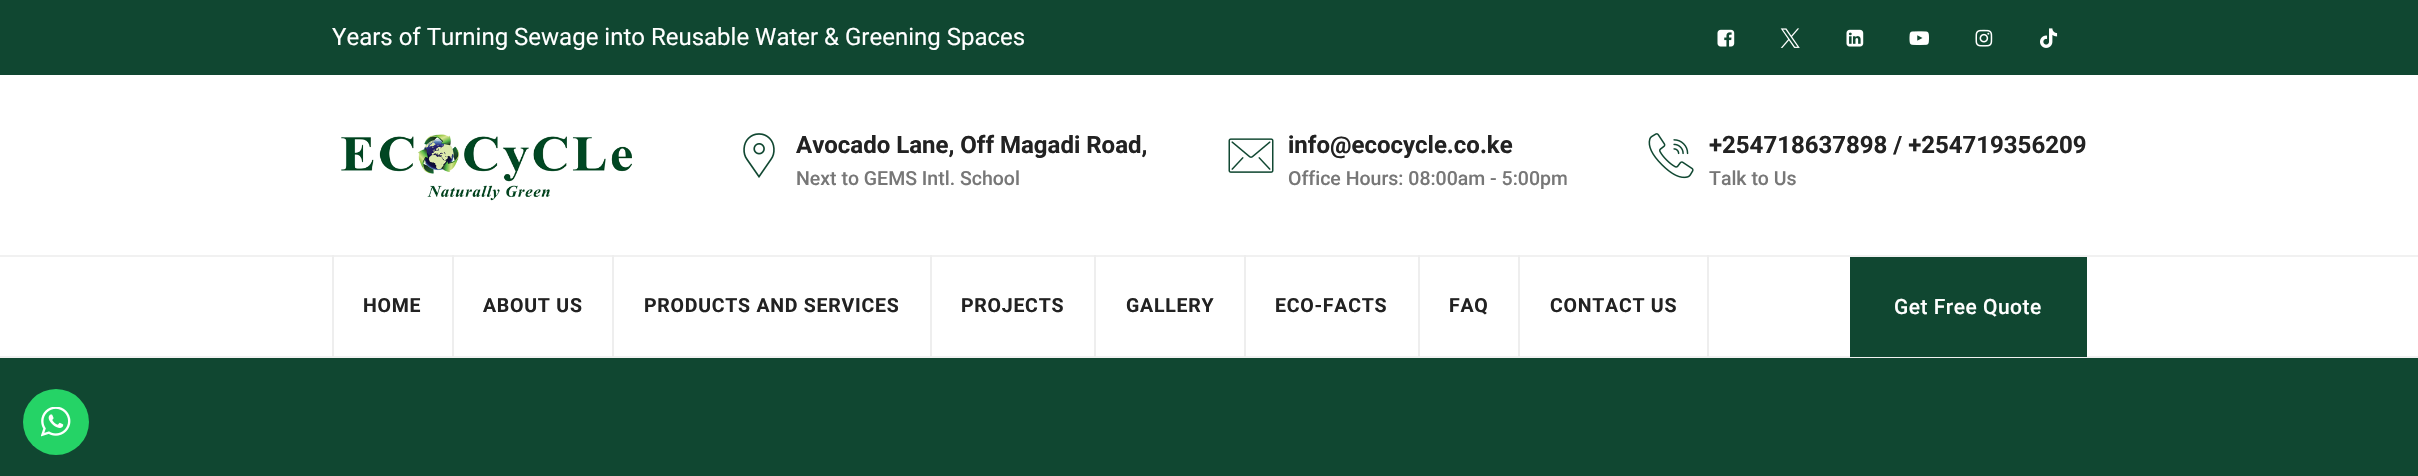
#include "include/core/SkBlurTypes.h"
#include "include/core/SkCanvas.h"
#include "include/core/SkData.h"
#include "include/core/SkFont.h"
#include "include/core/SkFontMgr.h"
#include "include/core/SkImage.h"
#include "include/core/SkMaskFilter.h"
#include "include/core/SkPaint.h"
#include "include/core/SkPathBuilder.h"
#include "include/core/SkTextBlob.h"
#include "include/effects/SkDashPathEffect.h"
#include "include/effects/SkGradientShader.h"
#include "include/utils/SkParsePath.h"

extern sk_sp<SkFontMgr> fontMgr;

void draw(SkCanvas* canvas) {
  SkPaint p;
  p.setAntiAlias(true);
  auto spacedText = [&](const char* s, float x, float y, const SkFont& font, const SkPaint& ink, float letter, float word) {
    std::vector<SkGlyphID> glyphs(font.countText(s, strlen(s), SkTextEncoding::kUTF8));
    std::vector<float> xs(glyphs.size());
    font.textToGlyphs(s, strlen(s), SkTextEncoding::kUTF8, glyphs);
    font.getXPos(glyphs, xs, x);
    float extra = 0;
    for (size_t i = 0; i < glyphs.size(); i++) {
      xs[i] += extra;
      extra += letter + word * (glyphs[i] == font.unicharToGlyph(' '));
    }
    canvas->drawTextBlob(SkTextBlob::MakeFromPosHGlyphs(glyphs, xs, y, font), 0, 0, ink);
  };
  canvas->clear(SK_ColorWHITE);
  p.setColor(SkColorSetRGB(16, 71, 49));
  canvas->drawRect(SkRect::MakeLTRB(0, 0, 2418, 75), p);
  canvas->drawImageRect(SkImages::DeferredFromEncodedData(SkData::MakeFromFileName("images/1.png")), SkRect::MakeLTRB(1717, 29, 1735, 47), SkSamplingOptions());
  canvas->drawImageRect(SkImages::DeferredFromEncodedData(SkData::MakeFromFileName("images/2.png")), SkRect::MakeLTRB(1780, 28, 1800, 48), SkSamplingOptions());
  canvas->drawImageRect(SkImages::DeferredFromEncodedData(SkData::MakeFromFileName("images/3.png")), SkRect::MakeLTRB(1846, 29, 1864, 47), SkSamplingOptions());
  canvas->drawImageRect(SkImages::DeferredFromEncodedData(SkData::MakeFromFileName("images/4.png")), SkRect::MakeLTRB(1909, 31, 1929, 46), SkSamplingOptions());
  canvas->drawImageRect(SkImages::DeferredFromEncodedData(SkData::MakeFromFileName("images/5.png")), SkRect::MakeLTRB(1975, 29, 1993, 47), SkSamplingOptions());
  canvas->drawImageRect(SkImages::DeferredFromEncodedData(SkData::MakeFromFileName("images/6.png")), SkRect::MakeLTRB(2040, 28, 2058, 48), SkSamplingOptions());
  canvas->drawImageRect(SkImages::DeferredFromEncodedData(SkData::MakeFromFileName("images/7.png")), SkRect::MakeLTRB(341, 134, 632, 201), SkSamplingOptions());
  canvas->drawImageRect(SkImages::DeferredFromEncodedData(SkData::MakeFromFileName("images/8.png")), SkRect::MakeLTRB(743, 133, 775, 178), SkSamplingOptions());
  canvas->drawImageRect(SkImages::DeferredFromEncodedData(SkData::MakeFromFileName("images/9.png")), SkRect::MakeLTRB(1228, 138, 1274, 173), SkSamplingOptions());
  canvas->drawImageRect(SkImages::DeferredFromEncodedData(SkData::MakeFromFileName("images/10.png")), SkRect::MakeLTRB(1648, 133, 1694, 179), SkSamplingOptions());
  p.setColor(SkColorSetRGB(241, 241, 241));
  canvas->drawRect(SkRect::MakeLTRB(0, 356, 2418, 358), p);
  canvas->drawRect(SkRect::MakeLTRB(0, 255, 2418, 257), p);
  p.setColor(SkColorSetRGB(238, 238, 238));
  canvas->drawRect(SkRect::MakeLTRB(332, 255, 334, 357), p);
  canvas->drawRect(SkRect::MakeLTRB(452, 255, 454, 357), p);
  canvas->drawRect(SkRect::MakeLTRB(612, 255, 614, 357), p);
  canvas->drawRect(SkRect::MakeLTRB(930, 255, 932, 357), p);
  canvas->drawRect(SkRect::MakeLTRB(1094, 255, 1096, 357), p);
  canvas->drawRect(SkRect::MakeLTRB(1244, 255, 1246, 357), p);
  canvas->drawRect(SkRect::MakeLTRB(1418, 255, 1420, 357), p);
  canvas->drawRect(SkRect::MakeLTRB(1518, 255, 1520, 357), p);
  canvas->drawRect(SkRect::MakeLTRB(1707, 255, 1709, 357), p);
  p.setColor(SkColorSetRGB(16, 71, 49));
  canvas->drawRect(SkRect::MakeLTRB(1850, 257, 2087, 357), p);
  canvas->drawRect(SkRect::MakeLTRB(0, 358, 2418, 476), p);
  p.setColor(SkColorSetRGB(37, 211, 102));
  canvas->drawCircle(56, 422, 33, p);
  canvas->drawImageRect(SkImages::DeferredFromEncodedData(SkData::MakeFromFileName("images/11.png")), SkRect::MakeLTRB(41, 407, 71, 437), SkSamplingOptions());
  SkFont font1(fontMgr->matchFamilyStyle("Roboto", SkFontStyle::Normal()), 24);
  font1.setSubpixel(true);
  p.setColor(SK_ColorWHITE);
  canvas->drawString("Years of Turning Sewage into Reusable Water & Greening Spaces", 332, 45, font1, p);
  SkFont font2(fontMgr->matchFamilyStyle("Roboto", SkFontStyle::Bold()), 24);
  font2.setSubpixel(true);
  p.setColor(SkColorSetRGB(34, 34, 34));
  canvas->drawString("Avocado Lane, Off Magadi Road,", 796, 153, font2, p);
  SkFont font3(fontMgr->matchFamilyStyle("Roboto", SkFontStyle(500, SkFontStyle::kNormal_Width, SkFontStyle::kUpright_Slant)), 19.5f);
  font3.setSubpixel(true);
  p.setColor(SkColorSetRGB(119, 119, 119));
  canvas->drawString("Next to GEMS Intl. School", 796, 185, font3, p);
  p.setColor(SkColorSetRGB(34, 34, 34));
  canvas->drawString("info@ecocycle.co.ke", 1288, 153, font2, p);
  p.setColor(SkColorSetRGB(119, 119, 119));
  canvas->drawString("Office Hours: 08:00am - 5:00pm", 1288, 185, font3, p);
  p.setColor(SkColorSetARGB(77, 255, 255, 255));
  canvas->drawRect(SkRect::MakeLTRB(1566, 175, 1567, 185), p);
  p.setColor(SkColorSetRGB(34, 34, 34));
  canvas->drawString("+254718637898 / +254719356209", 1709, 153, font2, p);
  p.setColor(SkColorSetRGB(119, 119, 119));
  canvas->drawString("Talk to Us", 1709, 185, font3, p);
  SkFont font4(fontMgr->matchFamilyStyle("Roboto", SkFontStyle::Bold()), 19.5f);
  font4.setSubpixel(true);
  p.setColor(SkColorSetRGB(34, 34, 34));
  spacedText("HOME", 363, 312, font4, p, 0.75f, 0);
  spacedText("ABOUT US", 483, 312, font4, p, 0.75f, 0);
  spacedText("PRODUCTS AND SERVICES", 644, 312, font4, p, 0.75f, 0);
  spacedText("PROJECTS", 961, 312, font4, p, 0.75f, 0);
  spacedText("GALLERY", 1126, 312, font4, p, 0.75f, 0);
  spacedText("ECO-FACTS", 1275, 312, font4, p, 0.75f, 0);
  spacedText("FAQ", 1449, 312, font4, p, 0.75f, 0);
  spacedText("CONTACT US", 1550, 312, font4, p, 0.75f, 0);
  SkFont font5(fontMgr->matchFamilyStyle("Roboto", SkFontStyle(500, SkFontStyle::kNormal_Width, SkFontStyle::kUpright_Slant)), 21);
  font5.setSubpixel(true);
  p.setColor(SK_ColorWHITE);
  spacedText("Get Free Quote", 1894, 314, font5, p, 0.5f, 0);
}
